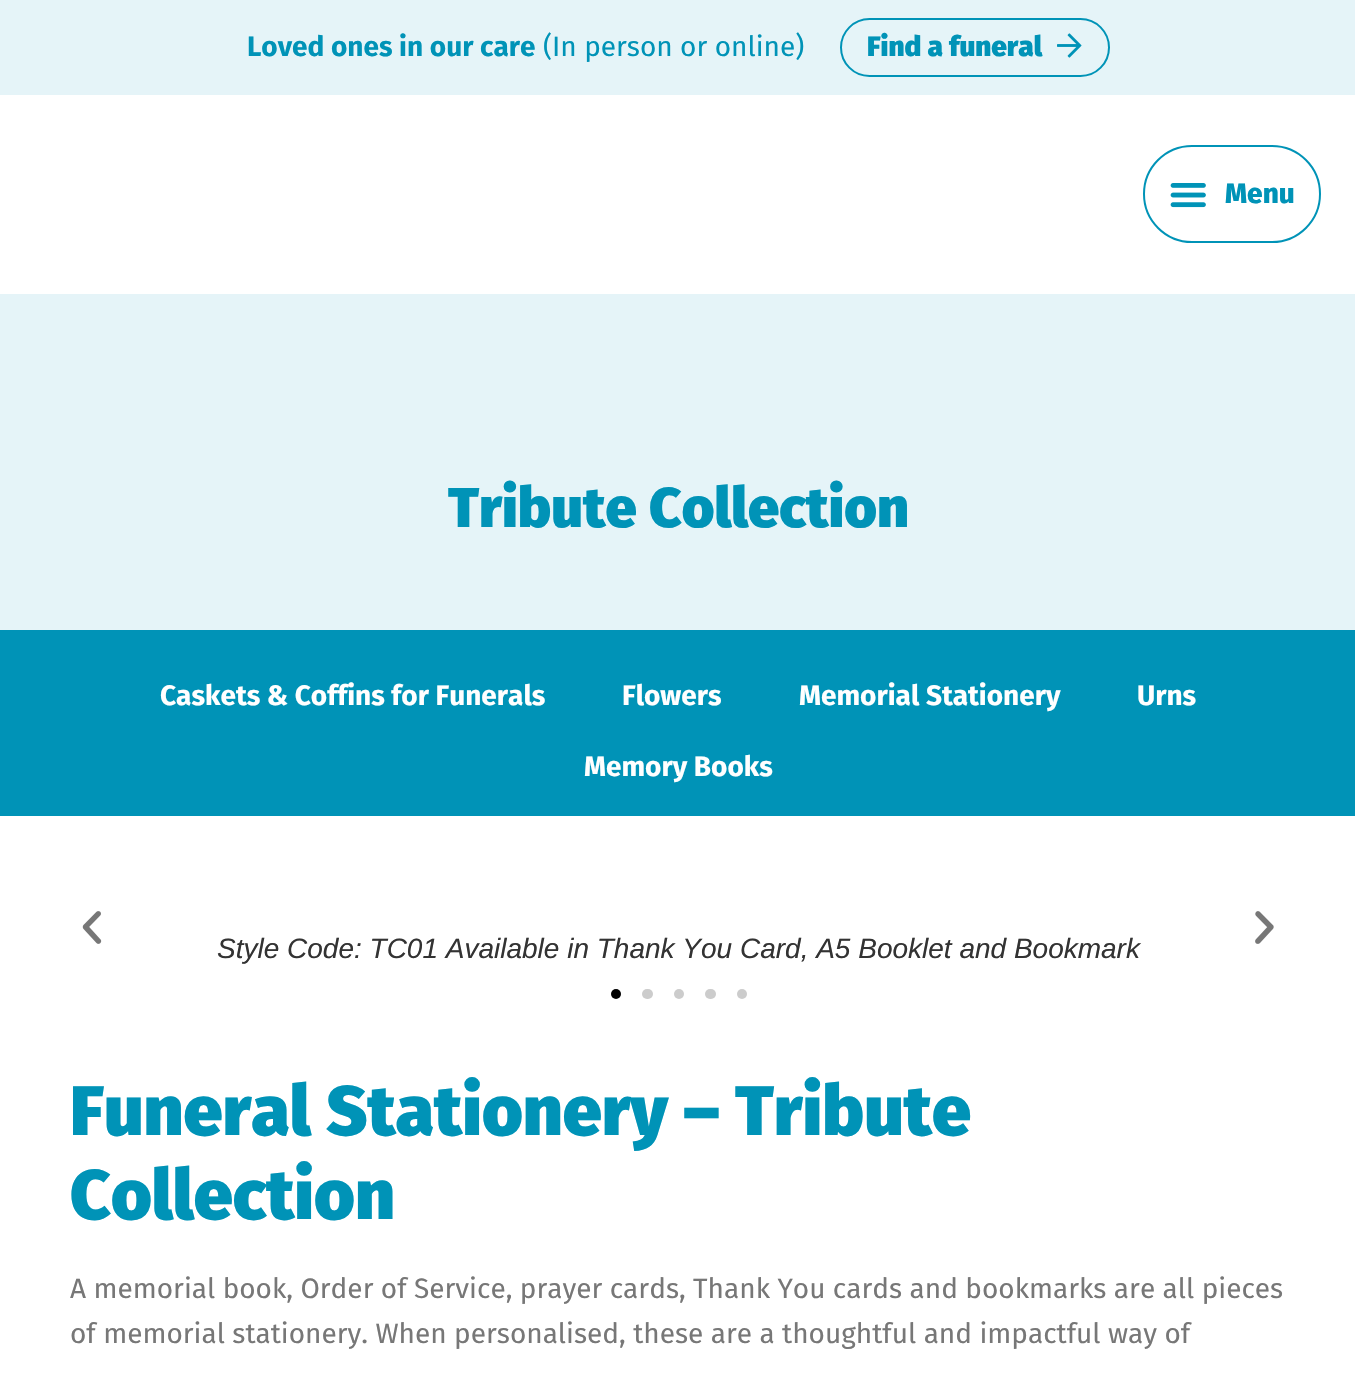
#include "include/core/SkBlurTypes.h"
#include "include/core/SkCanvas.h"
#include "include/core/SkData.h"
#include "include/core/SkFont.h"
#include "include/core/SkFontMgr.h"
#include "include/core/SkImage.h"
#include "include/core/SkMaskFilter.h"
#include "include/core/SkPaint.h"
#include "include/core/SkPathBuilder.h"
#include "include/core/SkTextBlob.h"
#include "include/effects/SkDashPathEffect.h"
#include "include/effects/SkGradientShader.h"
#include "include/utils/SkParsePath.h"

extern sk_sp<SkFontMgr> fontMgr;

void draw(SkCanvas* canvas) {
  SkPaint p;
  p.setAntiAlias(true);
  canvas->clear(SK_ColorWHITE);
  p.setColor(SkColorSetRGB(229, 244, 248));
  canvas->drawRect(SkRect::MakeLTRB(0, 0, 1355, 95), p);
  p.setStyle(SkPaint::kStroke_Style);
  p.setStrokeWidth(2);
  p.setColor(SkColorSetRGB(0, 147, 183));
  canvas->drawRoundRect(SkRect::MakeLTRB(841, 19, 1109, 76), 28.5f, 28.5f, p);
  canvas->drawImageRect(SkImages::DeferredFromEncodedData(SkData::MakeFromFileName("images/1.png")), SkRect::MakeLTRB(1057, 33, 1082, 58), SkSamplingOptions());
  canvas->drawRoundRect(SkRect::MakeLTRB(1144, 146, 1320, 242), 48, 48, p);
  canvas->drawImageRect(SkImages::DeferredFromEncodedData(SkData::MakeFromFileName("images/2.png")), SkRect::MakeLTRB(1170, 183, 1206, 208), SkSamplingOptions());
  p.setStyle(SkPaint::kFill_Style);
  p.setColor(SkColorSetRGB(229, 244, 248));
  canvas->drawRect(SkRect::MakeLTRB(0, 294, 1355, 630), p);
  p.setColor(SkColorSetRGB(0, 147, 183));
  canvas->drawRect(SkRect::MakeLTRB(0, 630, 1355, 816), p);
  canvas->drawImageRect(SkImages::DeferredFromEncodedData(SkData::MakeFromFileName("images/3.png")), SkRect::MakeLTRB(82, 911, 102, 944), SkSamplingOptions());
  canvas->drawImageRect(SkImages::DeferredFromEncodedData(SkData::MakeFromFileName("images/4.png")), SkRect::MakeLTRB(1255, 911, 1274, 944), SkSamplingOptions());
  p.setColor(SK_ColorBLACK);
  canvas->drawCircle(616, 994, 5, p);
  p.setColor(SkColorSetRGB(204, 204, 204));
  canvas->drawRoundRect(SkRect::MakeLTRB(642, 989, 653, 999), 5, 5, p);
  canvas->drawCircle(679, 994, 5, p);
  canvas->drawRoundRect(SkRect::MakeLTRB(705, 989, 716, 999), 5, 5, p);
  canvas->drawCircle(742, 994, 5, p);
  SkFont font1(fontMgr->matchFamilyStyle("Fira Sans", SkFontStyle::Bold()), 28);
  font1.setSubpixel(true);
  p.setColor(SkColorSetRGB(0, 147, 183));
  canvas->drawString("Loved ones in our care", 247, 56, font1, p);
  SkFont font2(fontMgr->matchFamilyStyle("Fira Sans", SkFontStyle::Normal()), 28);
  font2.setSubpixel(true);
  canvas->drawString("(In person or online)", 543, 56, font2, p);
  SkFont font3(fontMgr->matchFamilyStyle("Fira Sans", SkFontStyle(900, SkFontStyle::kNormal_Width, SkFontStyle::kUpright_Slant)), 28);
  font3.setSubpixel(true);
  canvas->drawString("Find a funeral", 867, 56, font3, p);
  SkFont font4(fontMgr->matchFamilyStyle("Fira Sans", SkFontStyle(800, SkFontStyle::kNormal_Width, SkFontStyle::kUpright_Slant)), 28);
  font4.setSubpixel(true);
  canvas->drawString("Menu", 1225, 203, font4, p);
  SkFont font5(fontMgr->matchFamilyStyle("Fira Sans", SkFontStyle(900, SkFontStyle::kNormal_Width, SkFontStyle::kUpright_Slant)), 56);
  font5.setSubpixel(true);
  canvas->drawString("Tribute Collection", 448, 527, font5, p);
  p.setColor(SK_ColorWHITE);
  canvas->drawString("Caskets & Coffins for Funerals", 160, 705, font1, p);
  canvas->drawString("Flowers", 622, 705, font1, p);
  canvas->drawString("Memorial Stationery", 799, 705, font1, p);
  canvas->drawString("Urns", 1137, 705, font1, p);
  canvas->drawString("Memory Books", 584, 776, font1, p);
  SkFont font6(fontMgr->matchFamilyStyle("Liberation Sans", SkFontStyle::Italic()), 28);
  font6.setSubpixel(true);
  p.setColor(SkColorSetRGB(51, 51, 51));
  canvas->drawString("Style Code: TC01 Available in Thank You Card, A5 Booklet and Bookmark", 217, 958, font6, p);
  SkFont font7(fontMgr->matchFamilyStyle("Fira Sans", SkFontStyle(900, SkFontStyle::kNormal_Width, SkFontStyle::kUpright_Slant)), 70);
  font7.setSubpixel(true);
  p.setColor(SkColorSetRGB(0, 147, 183));
  canvas->drawString("Funeral Stationery – Tribute", 70, 1135, font7, p);
  canvas->drawString("Collection", 70, 1219, font7, p);
  p.setColor(SkColorSetRGB(119, 119, 119));
  canvas->drawString("A memorial book, Order of Service, prayer cards, Thank You cards and bookmarks are all pieces", 70, 1298, font2, p);
  canvas->drawString("of memorial stationery. When personalised, these are a thoughtful and impactful way of", 70, 1343, font2, p);
}
